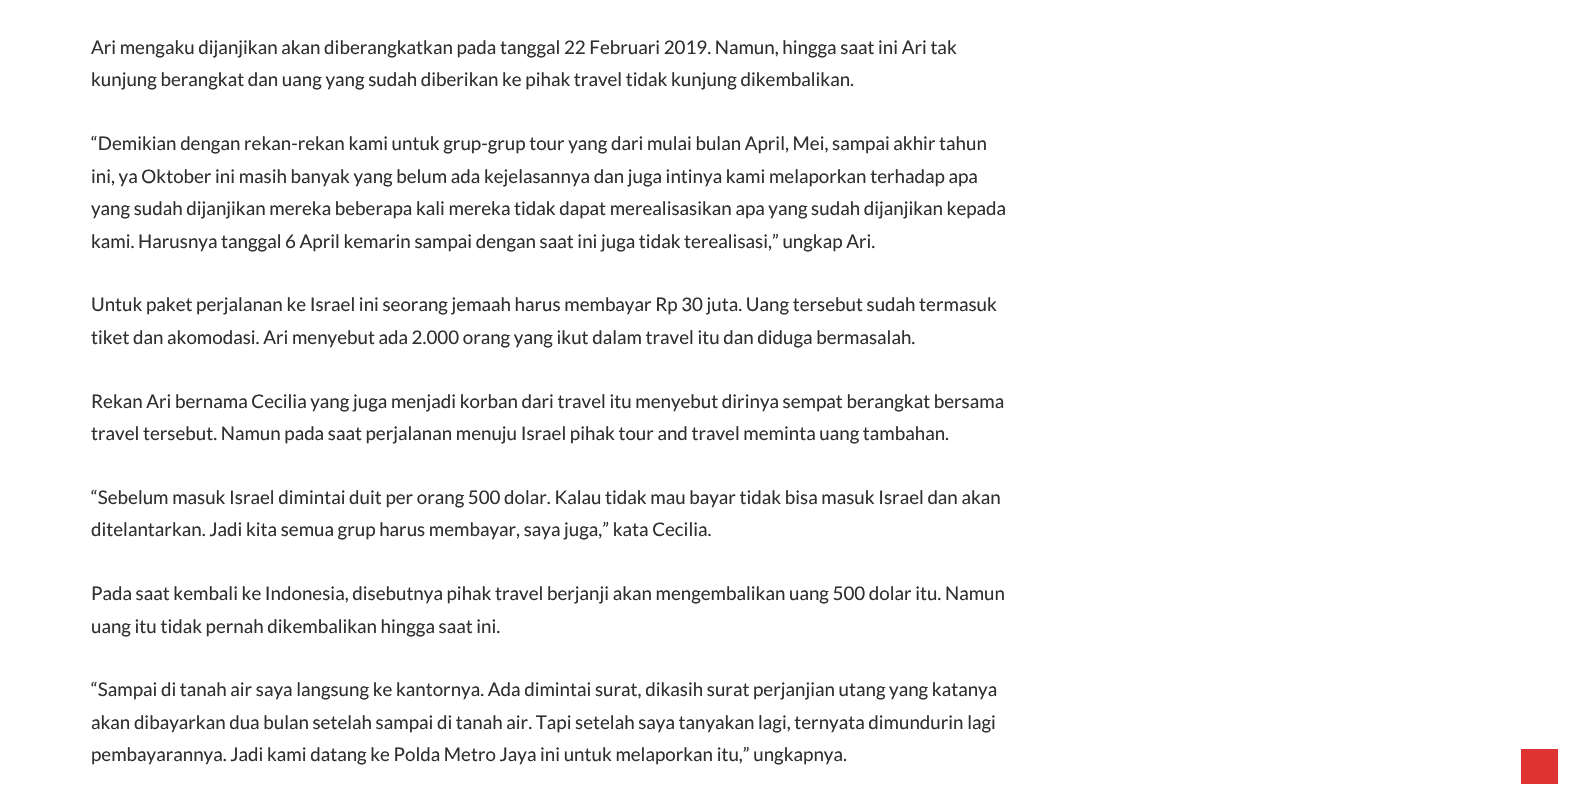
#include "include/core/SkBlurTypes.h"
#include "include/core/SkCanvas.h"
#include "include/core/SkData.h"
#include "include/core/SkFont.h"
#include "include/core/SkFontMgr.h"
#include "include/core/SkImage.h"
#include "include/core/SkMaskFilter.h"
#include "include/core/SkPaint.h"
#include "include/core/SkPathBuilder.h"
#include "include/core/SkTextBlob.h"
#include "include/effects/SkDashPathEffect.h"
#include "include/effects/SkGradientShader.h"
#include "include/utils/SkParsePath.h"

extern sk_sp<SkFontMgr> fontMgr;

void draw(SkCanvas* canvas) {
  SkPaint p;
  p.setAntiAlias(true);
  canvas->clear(SK_ColorWHITE);
  p.setColor(SkColorSetRGB(221, 51, 51));
  canvas->drawRect(SkRect::MakeLTRB(1521, 749, 1558, 784), p);
  SkFont font1(fontMgr->matchFamilyStyle("Lato", SkFontStyle::Normal()), 18.75f);
  font1.setSubpixel(true);
  p.setColor(SkColorSetRGB(49, 48, 48));
  canvas->drawString("Ari mengaku dijanjikan akan diberangkatkan pada tanggal 22 Februari 2019. Namun, hingga saat ini Ari tak", 91, 54, font1, p);
  canvas->drawString("kunjung berangkat dan uang yang sudah diberikan ke pihak travel tidak kunjung dikembalikan.", 91, 86, font1, p);
  canvas->drawString("“Demikian dengan rekan-rekan kami untuk grup-grup tour yang dari mulai bulan April, Mei, sampai akhir tahun", 91, 150, font1, p);
  canvas->drawString("ini, ya Oktober ini masih banyak yang belum ada kejelasannya dan juga intinya kami melaporkan terhadap apa", 91, 183, font1, p);
  canvas->drawString("yang sudah dijanjikan mereka beberapa kali mereka tidak dapat merealisasikan apa yang sudah dijanjikan kepada", 91, 215, font1, p);
  canvas->drawString("kami. Harusnya tanggal 6 April kemarin sampai dengan saat ini juga tidak terealisasi,” ungkap Ari.", 91, 248, font1, p);
  canvas->drawString("Untuk paket perjalanan ke Israel ini seorang jemaah harus membayar Rp 30 juta. Uang tersebut sudah termasuk", 91, 311, font1, p);
  canvas->drawString("tiket dan akomodasi. Ari menyebut ada 2.000 orang yang ikut dalam travel itu dan diduga bermasalah.", 91, 344, font1, p);
  canvas->drawString("Rekan Ari bernama Cecilia yang juga menjadi korban dari travel itu menyebut dirinya sempat berangkat bersama", 91, 408, font1, p);
  canvas->drawString("travel tersebut. Namun pada saat perjalanan menuju Israel pihak tour and travel meminta uang tambahan.", 91, 440, font1, p);
  canvas->drawString("“Sebelum masuk Israel dimintai duit per orang 500 dolar. Kalau tidak mau bayar tidak bisa masuk Israel dan akan", 91, 504, font1, p);
  canvas->drawString("ditelantarkan. Jadi kita semua grup harus membayar, saya juga,” kata Cecilia.", 91, 536, font1, p);
  canvas->drawString("Pada saat kembali ke Indonesia, disebutnya pihak travel berjanji akan mengembalikan uang 500 dolar itu. Namun", 91, 600, font1, p);
  canvas->drawString("uang itu tidak pernah dikembalikan hingga saat ini.", 91, 633, font1, p);
  canvas->drawString("“Sampai di tanah air saya langsung ke kantornya. Ada dimintai surat, dikasih surat perjanjian utang yang katanya", 91, 696, font1, p);
  canvas->drawString("akan dibayarkan dua bulan setelah sampai di tanah air. Tapi setelah saya tanyakan lagi, ternyata dimundurin lagi", 91, 729, font1, p);
  canvas->drawString("pembayarannya. Jadi kami datang ke Polda Metro Jaya ini untuk melaporkan itu,” ungkapnya.", 91, 761, font1, p);
}
